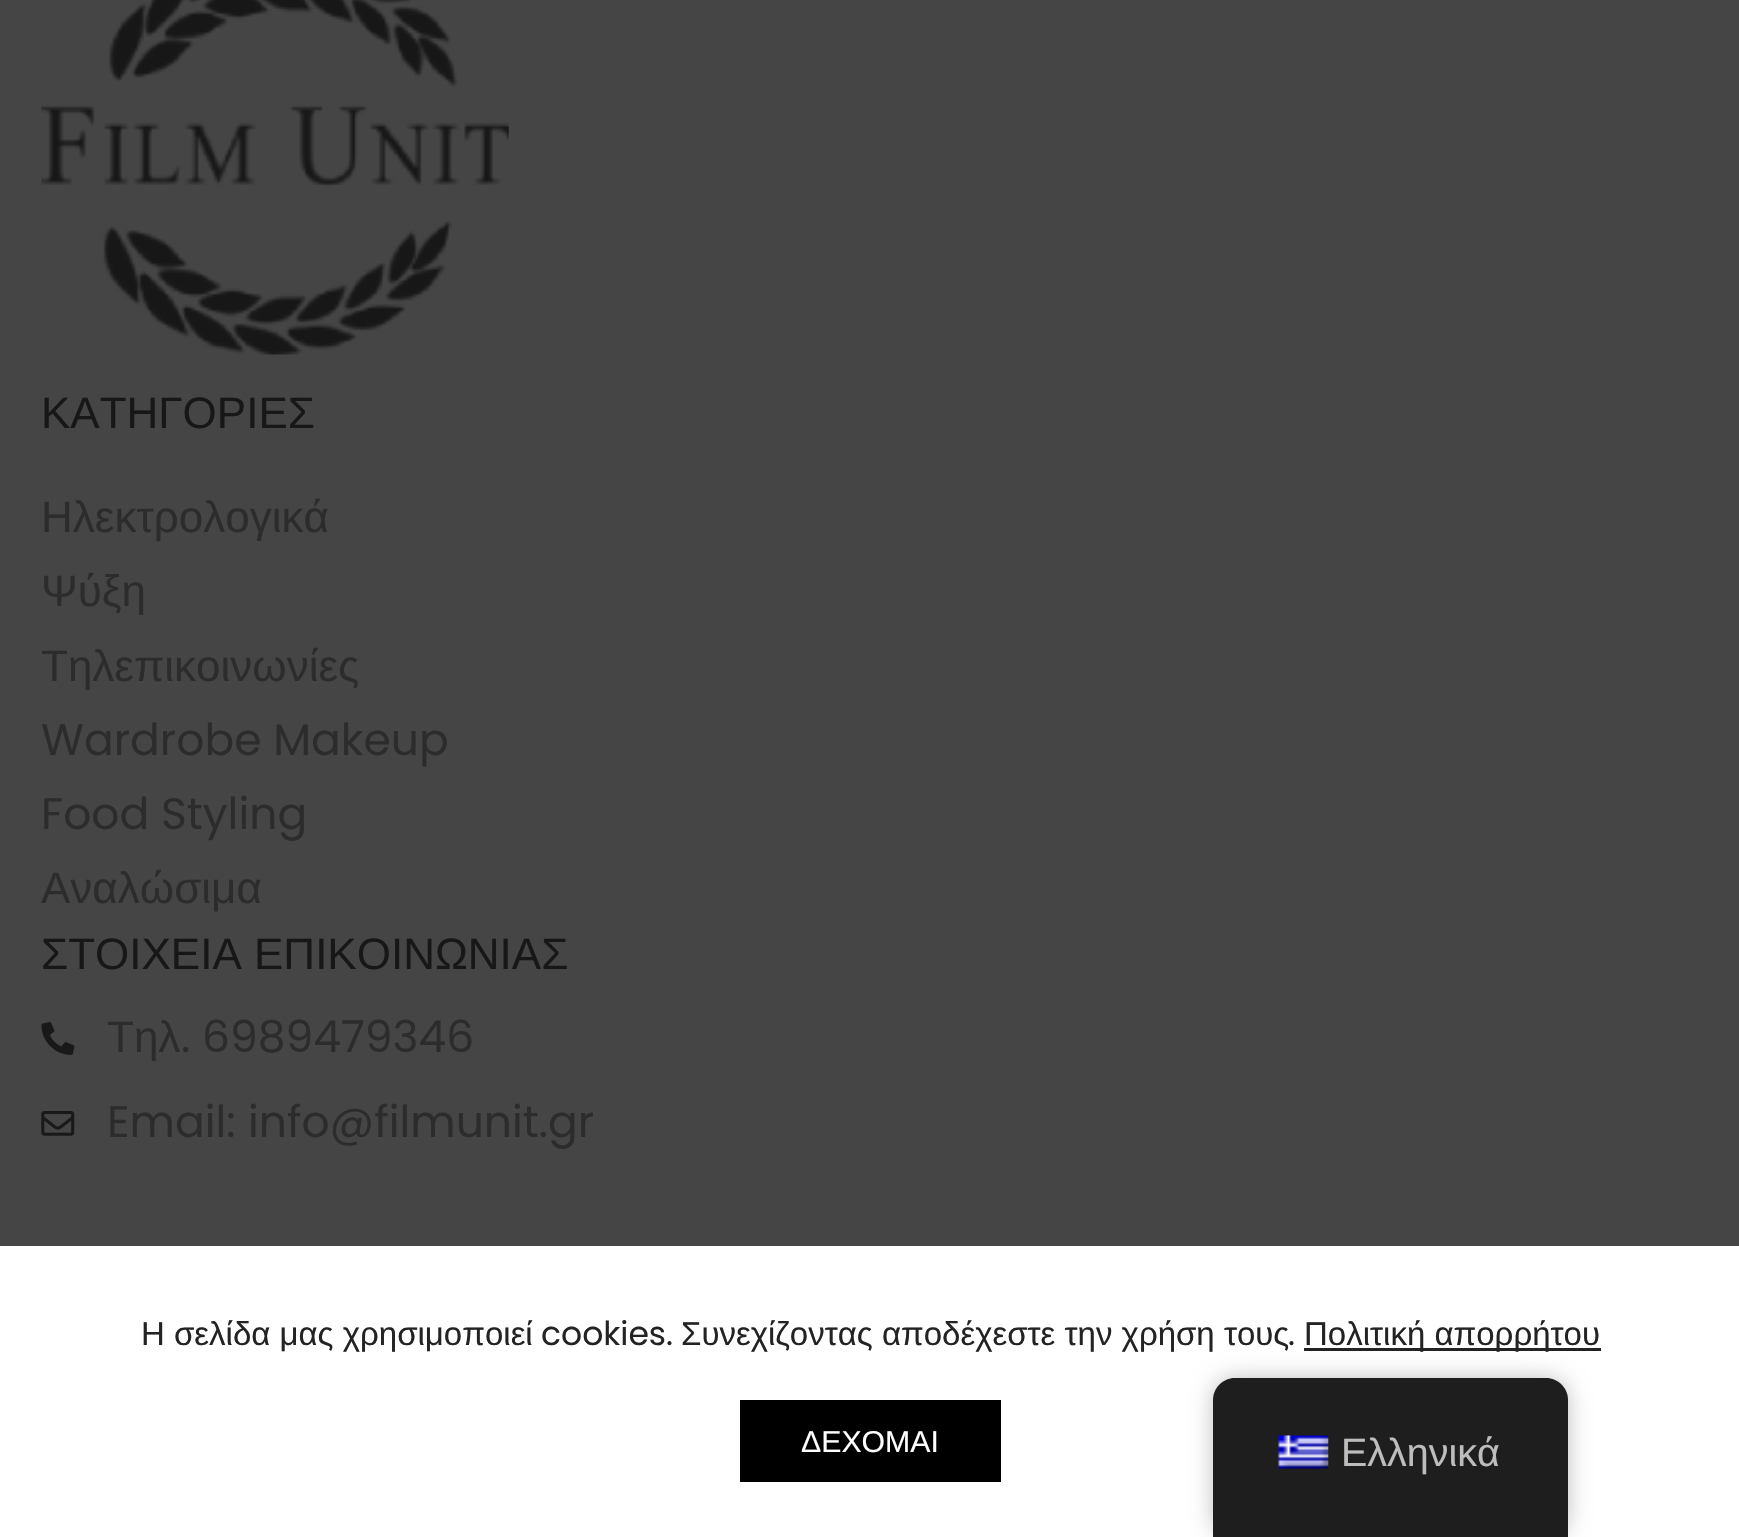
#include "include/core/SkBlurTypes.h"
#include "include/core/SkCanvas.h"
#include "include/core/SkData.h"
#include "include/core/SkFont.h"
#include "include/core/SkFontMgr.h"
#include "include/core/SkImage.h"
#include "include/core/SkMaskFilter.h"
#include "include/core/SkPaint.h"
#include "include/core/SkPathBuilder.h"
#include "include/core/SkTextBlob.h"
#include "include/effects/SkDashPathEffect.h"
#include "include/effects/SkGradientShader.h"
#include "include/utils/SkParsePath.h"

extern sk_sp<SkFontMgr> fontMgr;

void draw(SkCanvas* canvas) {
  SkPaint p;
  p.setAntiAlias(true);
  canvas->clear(SkColorSetRGB(69, 69, 69));
  canvas->drawImageRect(SkImages::DeferredFromEncodedData(SkData::MakeFromFileName("images/1.png")), SkRect::MakeLTRB(41, 0, 509, 355), SkSamplingOptions());
  canvas->drawImageRect(SkImages::DeferredFromEncodedData(SkData::MakeFromFileName("images/2.png")), SkRect::MakeLTRB(41, 1021, 75, 1055), SkSamplingOptions());
  canvas->drawImageRect(SkImages::DeferredFromEncodedData(SkData::MakeFromFileName("images/3.png")), SkRect::MakeLTRB(41, 1111, 75, 1136), SkSamplingOptions());
  p.setColor(SK_ColorWHITE);
  canvas->drawRect(SkRect::MakeLTRB(0, 1246, 1739, 1537), p);
  p.setColor(SkColorSetRGB(35, 35, 35));
  canvas->drawRect(SkRect::MakeLTRB(1304, 1348, 1601, 1351), p);
  p.setColor(SK_ColorBLACK);
  canvas->drawRect(SkRect::MakeLTRB(740, 1400, 1001, 1482), p);
  p.setColor(SkColorSetARGB(64, 0, 0, 0));
  p.setMaskFilter(SkMaskFilter::MakeBlur(kNormal_SkBlurStyle, 11));
  canvas->drawRoundRect(SkRect::MakeLTRB(1213, 1378, 1568, 1537), 22, 22, p);
  p.setMaskFilter(nullptr);
  p.setColor(SkColorSetRGB(30, 30, 30));
  canvas->drawPath(SkPathBuilder().moveTo(1235, 1378).lineTo(1546, 1378).cubicTo(1558, 1378, 1568, 1388, 1568, 1400).lineTo(1568, 1537).lineTo(1213, 1537).lineTo(1213, 1400).cubicTo(1213, 1388, 1223, 1378, 1235, 1378).close().detach(), p);
  canvas->drawImageRect(SkImages::DeferredFromEncodedData(SkData::MakeFromFileName("images/4.png")), SkRect::MakeLTRB(1278, 1435, 1329, 1469), SkSamplingOptions());
  SkFont font1(fontMgr->matchFamilyStyle("Liberation Sans", SkFontStyle::Normal()), 44);
  font1.setSubpixel(true);
  p.setColor(SkColorSetRGB(23, 23, 23));
  canvas->drawString("ΚΑΤΗΓΟΡΙΕΣ", 41, 428, font1, p);
  p.setColor(SkColorSetRGB(44, 44, 44));
  canvas->drawString("Ηλεκτρολογικά", 41, 532, font1, p);
  canvas->drawString("Ψύξη", 41, 606, font1, p);
  canvas->drawString("Τηλεπικοινωνίες", 41, 681, font1, p);
  SkFont font2(fontMgr->matchFamilyStyle("Poppins", SkFontStyle::Normal()), 44);
  font2.setSubpixel(true);
  canvas->drawString("Wardrobe Makeup", 41, 755, font2, p);
  canvas->drawString("Food Styling", 41, 829, font2, p);
  canvas->drawString("Αναλώσιμα", 41, 903, font1, p);
  p.setColor(SkColorSetRGB(23, 23, 23));
  canvas->drawString("ΣΤΟΙΧΕΙΑ ΕΠΙΚΟΙΝΩΝΙΑΣ", 41, 969, font1, p);
  p.setColor(SkColorSetRGB(44, 44, 44));
  canvas->drawString("Τηλ", 107, 1052, font1, p);
  canvas->drawString(".", 181, 1052, font2, p);
  canvas->drawString("6989479346", 202, 1052, font2, p);
  canvas->drawString("Email:", 107, 1137, font2, p);
  canvas->drawString("info@filmunit.gr", 248, 1137, font2, p);
  SkFont font3(fontMgr->matchFamilyStyle("Liberation Sans", SkFontStyle::Normal()), 33);
  font3.setSubpixel(true);
  p.setColor(SkColorSetRGB(35, 35, 35));
  canvas->drawString("Η σελίδα μας χρησιμοποιεί", 141, 1345, font3, p);
  SkFont font4(fontMgr->matchFamilyStyle("Poppins", SkFontStyle::Normal()), 33);
  font4.setSubpixel(true);
  canvas->drawString("cookies.", 541, 1345, font4, p);
  canvas->drawString("Συνεχίζοντας αποδέχεστε την χρήση τους", 681, 1345, font3, p);
  canvas->drawString(".", 1288, 1345, font4, p);
  canvas->drawString("Πολιτική απορρήτου", 1304, 1345, font3, p);
  SkFont font5(fontMgr->matchFamilyStyle("Liberation Sans", SkFontStyle::Normal()), 30.25f);
  font5.setSubpixel(true);
  p.setColor(SK_ColorWHITE);
  canvas->drawString("ΔΕΧΟΜΑΙ", 801, 1452, font5, p);
  SkFont font6(fontMgr->matchFamilyStyle("Liberation Sans", SkFontStyle::Normal()), 39.5f);
  font6.setSubpixel(true);
  p.setColor(SkColorSetRGB(189, 189, 189));
  canvas->drawString("Ελληνικά", 1341, 1466, font6, p);
}
